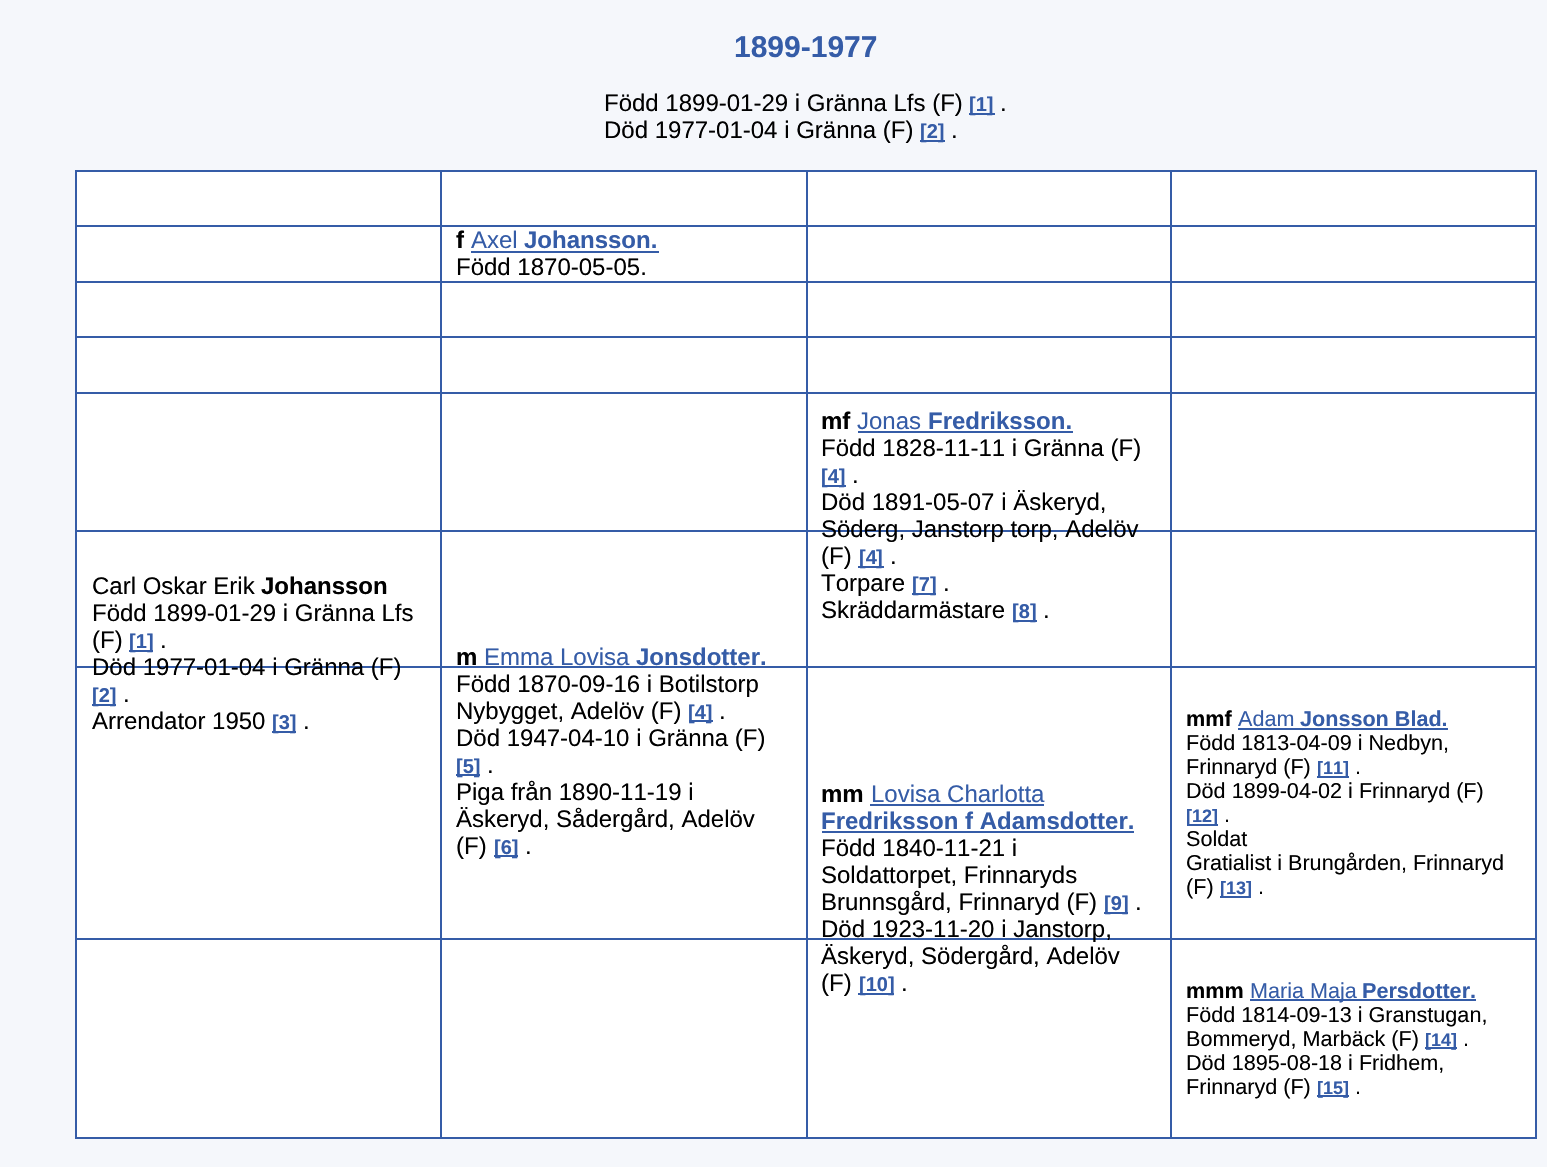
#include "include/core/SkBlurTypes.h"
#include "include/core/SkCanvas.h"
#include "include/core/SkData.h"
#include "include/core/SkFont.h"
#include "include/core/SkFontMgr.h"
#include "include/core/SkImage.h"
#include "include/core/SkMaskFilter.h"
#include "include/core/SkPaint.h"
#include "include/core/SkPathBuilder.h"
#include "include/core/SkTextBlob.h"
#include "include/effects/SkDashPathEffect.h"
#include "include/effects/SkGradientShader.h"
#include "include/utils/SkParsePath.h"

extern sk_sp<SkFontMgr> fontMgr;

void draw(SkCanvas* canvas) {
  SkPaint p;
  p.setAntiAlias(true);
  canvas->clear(SkColorSetRGB(245, 247, 251));
  p.setColor(SkColorSetRGB(53, 92, 167));
  canvas->drawRect(SkRect::MakeLTRB(969, 113, 995, 115), p);
  canvas->drawRect(SkRect::MakeLTRB(920, 140, 945, 142), p);
  canvas->drawRect(SkRect::MakeLTRB(75, 170, 1536, 172), p);
  canvas->drawRect(SkRect::MakeLTRB(1535, 170, 1537, 1139), p);
  canvas->drawRect(SkRect::MakeLTRB(75, 1137, 1536, 1139), p);
  canvas->drawRect(SkRect::MakeLTRB(75, 170, 77, 1139), p);
  p.setColor(SK_ColorWHITE);
  canvas->drawRect(SkRect::MakeLTRB(808, 172, 1170, 281), p);
  canvas->drawRect(SkRect::MakeLTRB(442, 172, 806, 392), p);
  canvas->drawRect(SkRect::MakeLTRB(77, 172, 440, 1137), p);
  p.setColor(SkColorSetRGB(53, 92, 167));
  canvas->drawRect(SkRect::MakeLTRB(75, 225, 1536, 227), p);
  p.setColor(SK_ColorWHITE);
  canvas->drawRect(SkRect::MakeLTRB(1172, 227, 1535, 281), p);
  canvas->drawRect(SkRect::MakeLTRB(1172, 172, 1535, 225), p);
  p.setColor(SkColorSetRGB(53, 92, 167));
  canvas->drawRect(SkRect::MakeLTRB(471, 251, 659, 253), p);
  canvas->drawRect(SkRect::MakeLTRB(129, 650, 135, 652), p);
  canvas->drawRect(SkRect::MakeLTRB(135, 650, 153, 652), p);
  canvas->drawRect(SkRect::MakeLTRB(92, 704, 116, 706), p);
  canvas->drawRect(SkRect::MakeLTRB(272, 731, 296, 733), p);
  canvas->drawRect(SkRect::MakeLTRB(75, 281, 1536, 283), p);
  p.setColor(SK_ColorWHITE);
  canvas->drawRect(SkRect::MakeLTRB(808, 283, 1170, 392), p);
  canvas->drawRect(SkRect::MakeLTRB(1172, 283, 1535, 336), p);
  p.setColor(SkColorSetRGB(53, 92, 167));
  canvas->drawRect(SkRect::MakeLTRB(75, 336, 1536, 338), p);
  p.setColor(SK_ColorWHITE);
  canvas->drawRect(SkRect::MakeLTRB(1172, 338, 1535, 392), p);
  p.setColor(SkColorSetRGB(53, 92, 167));
  canvas->drawRect(SkRect::MakeLTRB(75, 392, 1536, 394), p);
  p.setColor(SK_ColorWHITE);
  canvas->drawRect(SkRect::MakeLTRB(808, 394, 1170, 666), p);
  p.setColor(SkColorSetRGB(53, 92, 167));
  canvas->drawRect(SkRect::MakeLTRB(858, 431, 1073, 433), p);
  canvas->drawRect(SkRect::MakeLTRB(822, 485, 846, 487), p);
  canvas->drawRect(SkRect::MakeLTRB(858, 566, 876, 568), p);
  canvas->drawRect(SkRect::MakeLTRB(876, 566, 884, 568), p);
  canvas->drawRect(SkRect::MakeLTRB(912, 593, 918, 595), p);
  canvas->drawRect(SkRect::MakeLTRB(918, 593, 936, 595), p);
  canvas->drawRect(SkRect::MakeLTRB(1013, 620, 1029, 622), p);
  canvas->drawRect(SkRect::MakeLTRB(1029, 620, 1037, 622), p);
  p.setColor(SK_ColorWHITE);
  canvas->drawRect(SkRect::MakeLTRB(1172, 394, 1535, 530), p);
  canvas->drawRect(SkRect::MakeLTRB(442, 394, 806, 1137), p);
  p.setColor(SkColorSetRGB(53, 92, 167));
  canvas->drawRect(SkRect::MakeLTRB(75, 530, 1536, 532), p);
  canvas->drawRect(SkRect::MakeLTRB(75, 666, 1536, 668), p);
  p.setColor(SK_ColorWHITE);
  canvas->drawRect(SkRect::MakeLTRB(808, 668, 1170, 1137), p);
  p.setColor(SkColorSetRGB(53, 92, 167));
  canvas->drawRect(SkRect::MakeLTRB(75, 938, 1536, 940), p);
  canvas->drawRect(SkRect::MakeLTRB(440, 170, 442, 1139), p);
  canvas->drawRect(SkRect::MakeLTRB(689, 720, 713, 722), p);
  canvas->drawRect(SkRect::MakeLTRB(456, 774, 480, 776), p);
  canvas->drawRect(SkRect::MakeLTRB(494, 855, 518, 857), p);
  p.setColor(SK_ColorWHITE);
  canvas->drawRect(SkRect::MakeLTRB(1172, 532, 1535, 666), p);
  p.setColor(SkColorSetRGB(53, 92, 167));
  canvas->drawRect(SkRect::MakeLTRB(806, 170, 808, 1139), p);
  canvas->drawRect(SkRect::MakeLTRB(870, 804, 1044, 806), p);
  canvas->drawRect(SkRect::MakeLTRB(822, 831, 1134, 833), p);
  canvas->drawRect(SkRect::MakeLTRB(1104, 912, 1110, 914), p);
  canvas->drawRect(SkRect::MakeLTRB(1110, 912, 1128, 914), p);
  canvas->drawRect(SkRect::MakeLTRB(858, 993, 894, 995), p);
  p.setColor(SK_ColorWHITE);
  canvas->drawRect(SkRect::MakeLTRB(1172, 668, 1535, 938), p);
  p.setColor(SkColorSetRGB(53, 92, 167));
  canvas->drawRect(SkRect::MakeLTRB(1238, 728, 1448, 730), p);
  canvas->drawRect(SkRect::MakeLTRB(1317, 776, 1349, 778), p);
  canvas->drawRect(SkRect::MakeLTRB(1187, 824, 1218, 826), p);
  canvas->drawRect(SkRect::MakeLTRB(1220, 896, 1251, 898), p);
  p.setColor(SK_ColorWHITE);
  canvas->drawRect(SkRect::MakeLTRB(1172, 940, 1535, 1137), p);
  p.setColor(SkColorSetRGB(53, 92, 167));
  canvas->drawRect(SkRect::MakeLTRB(1170, 170, 1172, 1139), p);
  canvas->drawRect(SkRect::MakeLTRB(1250, 999, 1356, 1001), p);
  canvas->drawRect(SkRect::MakeLTRB(1356, 999, 1476, 1001), p);
  canvas->drawRect(SkRect::MakeLTRB(1425, 1047, 1457, 1049), p);
  canvas->drawRect(SkRect::MakeLTRB(1317, 1095, 1349, 1097), p);
  SkFont font1(fontMgr->matchFamilyStyle("Liberation Sans", SkFontStyle::Bold()), 30);
  font1.setSubpixel(true);
  canvas->drawString("1899-1977", 734, 57, font1, p);
  SkFont font2(fontMgr->matchFamilyStyle("Liberation Sans", SkFontStyle::Normal()), 24);
  font2.setSubpixel(true);
  p.setColor(SK_ColorBLACK);
  canvas->drawString("Född 1899-01-29 i Gränna Lfs (F)", 604, 111, font2, p);
  SkFont font3(fontMgr->matchFamilyStyle("Liberation Sans", SkFontStyle::Bold()), 20);
  font3.setSubpixel(true);
  p.setColor(SkColorSetRGB(53, 92, 167));
  canvas->drawString("[1]", 969, 111, font3, p);
  p.setColor(SK_ColorBLACK);
  canvas->drawString(".", 1000, 111, font2, p);
  canvas->drawString("Död 1977-01-04 i Gränna (F)", 604, 138, font2, p);
  p.setColor(SkColorSetRGB(53, 92, 167));
  canvas->drawString("[2]", 920, 138, font3, p);
  p.setColor(SK_ColorBLACK);
  canvas->drawString(".", 951, 138, font2, p);
  SkFont font4(fontMgr->matchFamilyStyle("Liberation Sans", SkFontStyle::Bold()), 24);
  font4.setSubpixel(true);
  canvas->drawString("f", 456, 248, font4, p);
  p.setColor(SkColorSetRGB(53, 92, 167));
  canvas->drawString("Axel", 471, 248, font2, p);
  canvas->drawString("Johansson.", 524, 248, font4, p);
  p.setColor(SK_ColorBLACK);
  canvas->drawString("Född 1870-05-05.", 456, 275, font2, p);
  canvas->drawString("Carl Oskar Erik", 92, 594, font2, p);
  canvas->drawString("Johansson", 261, 594, font4, p);
  canvas->drawString("Född 1899-01-29 i Gränna Lfs", 92, 621, font2, p);
  canvas->drawString("(F)", 92, 648, font2, p);
  p.setColor(SkColorSetRGB(53, 92, 167));
  canvas->drawString("[1", 129, 648, font3, p);
  canvas->drawString("]", 147, 648, font3, p);
  p.setColor(SK_ColorBLACK);
  canvas->drawString(".", 160, 648, font2, p);
  canvas->drawString("Död 1977-01-04 i Gränna (F)", 92, 675, font2, p);
  p.setColor(SkColorSetRGB(53, 92, 167));
  canvas->drawString("[2]", 92, 702, font3, p);
  p.setColor(SK_ColorBLACK);
  canvas->drawString(".", 123, 702, font2, p);
  canvas->drawString("Arrendator 1950", 92, 729, font2, p);
  p.setColor(SkColorSetRGB(53, 92, 167));
  canvas->drawString("[3]", 272, 729, font3, p);
  p.setColor(SK_ColorBLACK);
  canvas->drawString(".", 303, 729, font2, p);
  canvas->drawString("mf", 821, 429, font4, p);
  p.setColor(SkColorSetRGB(53, 92, 167));
  canvas->drawString("Jonas", 857, 429, font2, p);
  canvas->drawString("Fredriksson.", 928, 429, font4, p);
  p.setColor(SK_ColorBLACK);
  canvas->drawString("Född 1828-11-11 i Gränna (F)", 821, 456, font2, p);
  p.setColor(SkColorSetRGB(53, 92, 167));
  canvas->drawString("[4]", 821, 483, font3, p);
  p.setColor(SK_ColorBLACK);
  canvas->drawString(".", 852, 483, font2, p);
  canvas->drawString("Död 1891-05-07 i Äskeryd,", 821, 510, font2, p);
  canvas->drawString("Söderg, Janstorp torp, Adelöv", 821, 537, font2, p);
  canvas->drawString("(F)", 821, 564, font2, p);
  p.setColor(SkColorSetRGB(53, 92, 167));
  canvas->drawString("[4", 859, 564, font3, p);
  canvas->drawString("]", 876, 564, font3, p);
  p.setColor(SK_ColorBLACK);
  canvas->drawString(".", 890, 564, font2, p);
  canvas->drawString("Torpare", 821, 591, font2, p);
  p.setColor(SkColorSetRGB(53, 92, 167));
  canvas->drawString("[7", 912, 591, font3, p);
  canvas->drawString("]", 930, 591, font3, p);
  p.setColor(SK_ColorBLACK);
  canvas->drawString(".", 943, 591, font2, p);
  canvas->drawString("Skräddarmästare", 821, 618, font2, p);
  p.setColor(SkColorSetRGB(53, 92, 167));
  canvas->drawString("[8", 1012, 618, font3, p);
  canvas->drawString("]", 1030, 618, font3, p);
  p.setColor(SK_ColorBLACK);
  canvas->drawString(".", 1043, 618, font2, p);
  canvas->drawString("m", 456, 665, font4, p);
  p.setColor(SkColorSetRGB(53, 92, 167));
  canvas->drawString("Emma Lovisa", 484, 665, font2, p);
  canvas->drawString("Jonsdotter.", 636, 665, font4, p);
  p.setColor(SK_ColorBLACK);
  canvas->drawString("Född 1870-09-16 i Botilstorp", 456, 692, font2, p);
  canvas->drawString("Nybygget, Adelöv (F)", 456, 719, font2, p);
  p.setColor(SkColorSetRGB(53, 92, 167));
  canvas->drawString("[4]", 688, 719, font3, p);
  p.setColor(SK_ColorBLACK);
  canvas->drawString(".", 719, 719, font2, p);
  canvas->drawString("Död 1947-04-10 i Gränna (F)", 456, 746, font2, p);
  p.setColor(SkColorSetRGB(53, 92, 167));
  canvas->drawString("[5]", 456, 773, font3, p);
  p.setColor(SK_ColorBLACK);
  canvas->drawString(".", 487, 773, font2, p);
  canvas->drawString("Piga från 1890-11-19 i", 456, 800, font2, p);
  canvas->drawString("Äskeryd, Sådergård, Adelöv", 456, 827, font2, p);
  canvas->drawString("(F)", 456, 854, font2, p);
  p.setColor(SkColorSetRGB(53, 92, 167));
  canvas->drawString("[6]", 494, 854, font3, p);
  p.setColor(SK_ColorBLACK);
  canvas->drawString(".", 525, 854, font2, p);
  canvas->drawString("mm", 821, 802, font4, p);
  p.setColor(SkColorSetRGB(53, 92, 167));
  canvas->drawString("Lovisa Charlotta", 871, 802, font2, p);
  canvas->drawString("Fredriksson f Adamsdotter.", 821, 829, font4, p);
  p.setColor(SK_ColorBLACK);
  canvas->drawString("Född 1840-11-21 i", 821, 856, font2, p);
  canvas->drawString("Soldattorpet, Frinnaryds", 821, 883, font2, p);
  canvas->drawString("Brunnsgård, Frinnaryd (F)", 821, 910, font2, p);
  p.setColor(SkColorSetRGB(53, 92, 167));
  canvas->drawString("[9", 1104, 910, font3, p);
  canvas->drawString("]", 1122, 910, font3, p);
  p.setColor(SK_ColorBLACK);
  canvas->drawString(".", 1135, 910, font2, p);
  canvas->drawString("Död 1923-11-20 i Janstorp,", 821, 937, font2, p);
  canvas->drawString("Äskeryd, Södergård, Adelöv", 821, 964, font2, p);
  canvas->drawString("(F)", 821, 991, font2, p);
  p.setColor(SkColorSetRGB(53, 92, 167));
  canvas->drawString("[10]", 859, 991, font3, p);
  p.setColor(SK_ColorBLACK);
  canvas->drawString(".", 901, 991, font2, p);
  SkFont font5(fontMgr->matchFamilyStyle("Liberation Sans", SkFontStyle::Bold()), 21.6f);
  font5.setSubpixel(true);
  canvas->drawString("mmf", 1186, 726, font5, p);
  SkFont font6(fontMgr->matchFamilyStyle("Liberation Sans", SkFontStyle::Normal()), 21.6f);
  font6.setSubpixel(true);
  p.setColor(SkColorSetRGB(53, 92, 167));
  canvas->drawString("Adam", 1238, 726, font6, p);
  canvas->drawString("Jonsson Blad.", 1300, 726, font5, p);
  p.setColor(SK_ColorBLACK);
  canvas->drawString("Född 1813-04-09 i Nedbyn,", 1186, 750, font6, p);
  canvas->drawString("Frinnaryd (F)", 1186, 774, font6, p);
  SkFont font7(fontMgr->matchFamilyStyle("Liberation Sans", SkFontStyle::Bold()), 18);
  font7.setSubpixel(true);
  p.setColor(SkColorSetRGB(53, 92, 167));
  canvas->drawString("[11]", 1317, 774, font7, p);
  p.setColor(SK_ColorBLACK);
  canvas->drawString(".", 1355, 774, font6, p);
  canvas->drawString("Död 1899-04-02 i Frinnaryd (F)", 1186, 798, font6, p);
  p.setColor(SkColorSetRGB(53, 92, 167));
  canvas->drawString("[12]", 1186, 822, font7, p);
  p.setColor(SK_ColorBLACK);
  canvas->drawString(".", 1224, 822, font6, p);
  canvas->drawString("Soldat", 1186, 846, font6, p);
  canvas->drawString("Gratialist i Brungården, Frinnaryd", 1186, 870, font6, p);
  canvas->drawString("(F)", 1186, 894, font6, p);
  p.setColor(SkColorSetRGB(53, 92, 167));
  canvas->drawString("[13]", 1220, 894, font7, p);
  p.setColor(SK_ColorBLACK);
  canvas->drawString(".", 1258, 894, font6, p);
  canvas->drawString("mmm", 1186, 998, font5, p);
  p.setColor(SkColorSetRGB(53, 92, 167));
  canvas->drawString("Maria Maja", 1250, 998, font6, p);
  canvas->drawString("Persdotter.", 1362, 998, font5, p);
  p.setColor(SK_ColorBLACK);
  canvas->drawString("Född 1814-09-13 i Granstugan,", 1186, 1022, font6, p);
  canvas->drawString("Bommeryd, Marbäck (F)", 1186, 1046, font6, p);
  p.setColor(SkColorSetRGB(53, 92, 167));
  canvas->drawString("[14]", 1425, 1046, font7, p);
  p.setColor(SK_ColorBLACK);
  canvas->drawString(".", 1463, 1046, font6, p);
  canvas->drawString("Död 1895-08-18 i Fridhem,", 1186, 1070, font6, p);
  canvas->drawString("Frinnaryd (F)", 1186, 1094, font6, p);
  p.setColor(SkColorSetRGB(53, 92, 167));
  canvas->drawString("[15]", 1317, 1094, font7, p);
  p.setColor(SK_ColorBLACK);
  canvas->drawString(".", 1355, 1094, font6, p);
}
